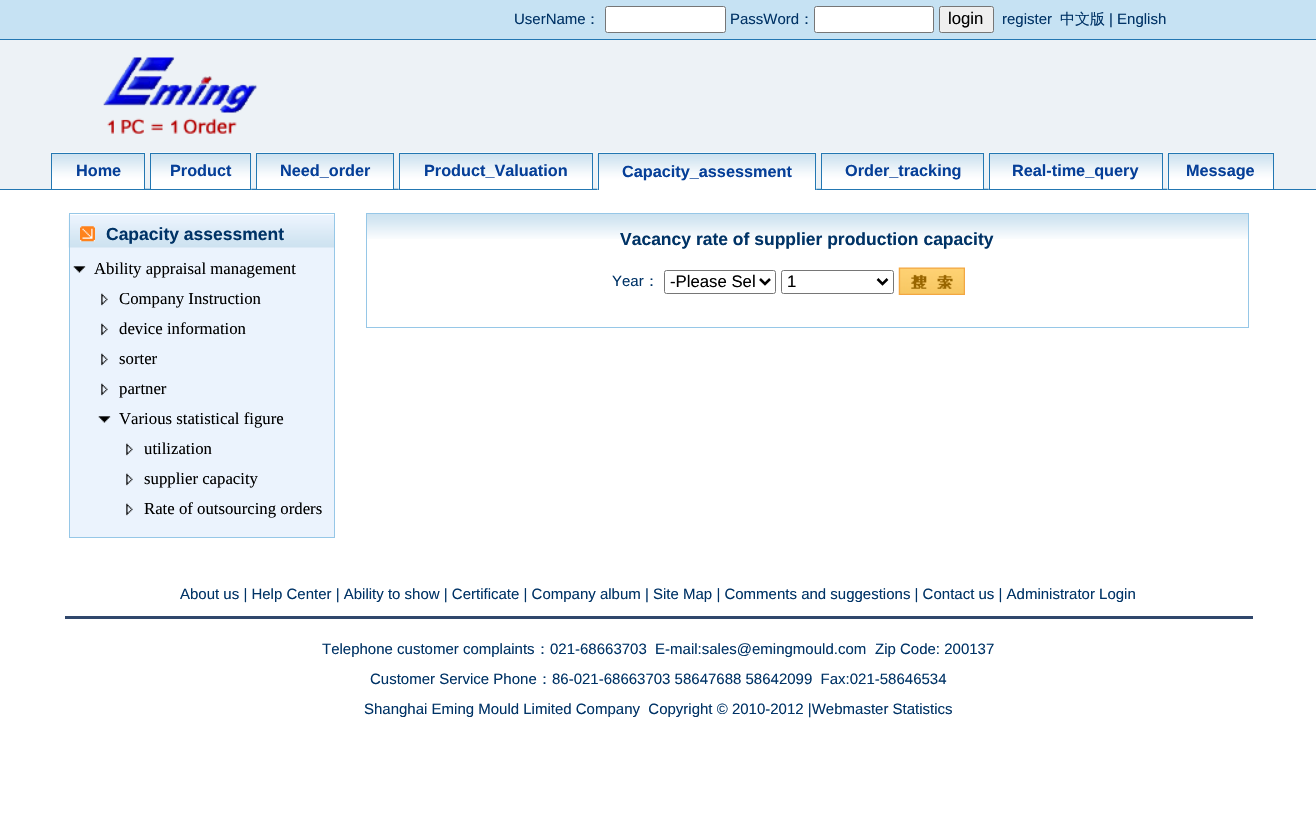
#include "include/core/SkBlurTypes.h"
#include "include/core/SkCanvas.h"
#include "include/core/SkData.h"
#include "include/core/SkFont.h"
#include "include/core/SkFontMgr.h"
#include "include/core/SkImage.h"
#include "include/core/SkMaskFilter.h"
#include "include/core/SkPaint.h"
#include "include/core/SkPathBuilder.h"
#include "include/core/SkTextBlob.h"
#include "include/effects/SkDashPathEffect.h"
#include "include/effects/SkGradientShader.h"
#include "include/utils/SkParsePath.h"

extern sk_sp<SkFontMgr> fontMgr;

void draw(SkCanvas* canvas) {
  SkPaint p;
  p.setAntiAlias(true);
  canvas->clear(SK_ColorWHITE);
  p.setColor(SkColorSetRGB(198, 226, 243));
  canvas->drawRect(SkRect::MakeLTRB(0, 0, 1316, 39), p);
  p.setColor(SkColorSetRGB(35, 119, 178));
  canvas->drawRect(SkRect::MakeLTRB(0, 39, 1316, 40), p);
  p.setColor(SK_ColorWHITE);
  canvas->drawRoundRect(SkRect::MakeLTRB(605.5f, 6.5f, 725.5f, 32.5f), 2, 2, p);
  p.setStyle(SkPaint::kStroke_Style);
  p.setStrokeWidth(1);
  p.setColor(SkColorSetRGB(118, 118, 118));
  canvas->drawRoundRect(SkRect::MakeLTRB(605.5f, 6.5f, 725.5f, 32.5f), 2, 2, p);
  p.setStyle(SkPaint::kFill_Style);
  p.setColor(SK_ColorWHITE);
  canvas->drawRoundRect(SkRect::MakeLTRB(814.5f, 6.5f, 933.5f, 32.5f), 2, 2, p);
  p.setStyle(SkPaint::kStroke_Style);
  p.setColor(SkColorSetRGB(118, 118, 118));
  canvas->drawRoundRect(SkRect::MakeLTRB(814.5f, 6.5f, 933.5f, 32.5f), 2, 2, p);
  p.setStyle(SkPaint::kFill_Style);
  p.setColor(SkColorSetRGB(239, 239, 239));
  canvas->drawRoundRect(SkRect::MakeLTRB(939.5f, 6.5f, 993.5f, 32.5f), 2, 2, p);
  p.setStyle(SkPaint::kStroke_Style);
  p.setColor(SkColorSetRGB(118, 118, 118));
  canvas->drawRoundRect(SkRect::MakeLTRB(939.5f, 6.5f, 993.5f, 32.5f), 2, 2, p);
  p.setStyle(SkPaint::kFill_Style);
  p.setColor(SkColorSetRGB(237, 242, 246));
  canvas->drawRect(SkRect::MakeLTRB(0, 40, 1316, 190), p);
  canvas->drawImageRect(SkImages::DeferredFromEncodedData(SkData::MakeFromFileName("images/1.png")), SkRect::MakeLTRB(103, 57, 258, 134), SkSamplingOptions());
  canvas->drawImageRect(SkImages::DeferredFromEncodedData(SkData::MakeFromFileName("images/2.png")), SkRect::MakeLTRB(51, 152, 145, 189), SkSamplingOptions());
  p.setStyle(SkPaint::kStroke_Style);
  p.setColor(SkColorSetRGB(35, 119, 178));
  canvas->drawRect(SkRect::MakeLTRB(51.5f, 153.5f, 144.5f, 189.5f), p);
  canvas->drawImageRect(SkImages::DeferredFromEncodedData(SkData::MakeFromFileName("images/3.png")), SkRect::MakeLTRB(150, 152, 252, 190), SkSamplingOptions());
  canvas->drawRect(SkRect::MakeLTRB(150.5f, 153.5f, 250.5f, 189.5f), p);
  canvas->drawImageRect(SkImages::DeferredFromEncodedData(SkData::MakeFromFileName("images/4.png")), SkRect::MakeLTRB(256, 152, 394, 189), SkSamplingOptions());
  canvas->drawRect(SkRect::MakeLTRB(256.5f, 153.5f, 393.5f, 189.5f), p);
  canvas->drawImageRect(SkImages::DeferredFromEncodedData(SkData::MakeFromFileName("images/5.png")), SkRect::MakeLTRB(398, 152, 593, 190), SkSamplingOptions());
  canvas->drawRect(SkRect::MakeLTRB(399.5f, 153.5f, 592.5f, 189.5f), p);
  canvas->drawImageRect(SkImages::DeferredFromEncodedData(SkData::MakeFromFileName("images/6.png")), SkRect::MakeLTRB(597, 152, 817, 190), SkSamplingOptions());
  p.setStyle(SkPaint::kFill_Style);
  canvas->drawRect(SkRect::MakeLTRB(598, 153, 816, 154), p);
  canvas->drawRect(SkRect::MakeLTRB(815, 153, 816, 190), p);
  canvas->drawRect(SkRect::MakeLTRB(598, 153, 599, 190), p);
  canvas->drawImageRect(SkImages::DeferredFromEncodedData(SkData::MakeFromFileName("images/7.png")), SkRect::MakeLTRB(821, 152, 984, 189), SkSamplingOptions());
  p.setStyle(SkPaint::kStroke_Style);
  canvas->drawRect(SkRect::MakeLTRB(821.5f, 153.5f, 983.5f, 189.5f), p);
  canvas->drawImageRect(SkImages::DeferredFromEncodedData(SkData::MakeFromFileName("images/8.png")), SkRect::MakeLTRB(988, 152, 1163, 190), SkSamplingOptions());
  canvas->drawRect(SkRect::MakeLTRB(989.5f, 153.5f, 1162.5f, 189.5f), p);
  canvas->drawImageRect(SkImages::DeferredFromEncodedData(SkData::MakeFromFileName("images/9.png")), SkRect::MakeLTRB(1167, 152, 1274, 190), SkSamplingOptions());
  canvas->drawRect(SkRect::MakeLTRB(1168.5f, 153.5f, 1273.5f, 189.5f), p);
  canvas->drawImageRect(SkImages::DeferredFromEncodedData(SkData::MakeFromFileName("images/10.png")), SkRect::MakeLTRB(145, 188, 150, 190), SkSamplingOptions());
  canvas->drawImageRect(SkImages::DeferredFromEncodedData(SkData::MakeFromFileName("images/11.png")), SkRect::MakeLTRB(251, 188, 256, 190), SkSamplingOptions());
  canvas->drawImageRect(SkImages::DeferredFromEncodedData(SkData::MakeFromFileName("images/12.png")), SkRect::MakeLTRB(394, 188, 399, 190), SkSamplingOptions());
  canvas->drawImageRect(SkImages::DeferredFromEncodedData(SkData::MakeFromFileName("images/13.png")), SkRect::MakeLTRB(593, 188, 598, 190), SkSamplingOptions());
  canvas->drawImageRect(SkImages::DeferredFromEncodedData(SkData::MakeFromFileName("images/11.png")), SkRect::MakeLTRB(816, 188, 821, 190), SkSamplingOptions());
  canvas->drawImageRect(SkImages::DeferredFromEncodedData(SkData::MakeFromFileName("images/12.png")), SkRect::MakeLTRB(984, 188, 989, 190), SkSamplingOptions());
  canvas->drawImageRect(SkImages::DeferredFromEncodedData(SkData::MakeFromFileName("images/13.png")), SkRect::MakeLTRB(1163, 188, 1168, 190), SkSamplingOptions());
  p.setStyle(SkPaint::kFill_Style);
  canvas->drawRect(SkRect::MakeLTRB(0, 189, 51, 190), p);
  canvas->drawRect(SkRect::MakeLTRB(1274, 189, 1316, 190), p);
  p.setColor(SkColorSetRGB(235, 243, 253));
  canvas->drawRect(SkRect::MakeLTRB(70, 247, 334, 537), p);
  canvas->drawImageRect(SkImages::DeferredFromEncodedData(SkData::MakeFromFileName("images/14.png")), SkRect::MakeLTRB(68, 213, 334, 248), SkSamplingOptions());
  p.setStyle(SkPaint::kStroke_Style);
  p.setColor(SkColorSetRGB(150, 199, 231));
  canvas->drawRect(SkRect::MakeLTRB(69.5f, 213.5f, 334.5f, 537.5f), p);
  canvas->drawImageRect(SkImages::DeferredFromEncodedData(SkData::MakeFromFileName("images/15.png")), SkRect::MakeLTRB(80, 226, 95, 242), SkSamplingOptions());
  canvas->drawImageRect(SkImages::DeferredFromEncodedData(SkData::MakeFromFileName("images/16.png")), SkRect::MakeLTRB(73, 266, 86, 273), SkSamplingOptions());
  canvas->drawImageRect(SkImages::DeferredFromEncodedData(SkData::MakeFromFileName("images/17.png")), SkRect::MakeLTRB(101, 293, 108, 306), SkSamplingOptions());
  canvas->drawImageRect(SkImages::DeferredFromEncodedData(SkData::MakeFromFileName("images/18.png")), SkRect::MakeLTRB(101, 323, 108, 336), SkSamplingOptions());
  canvas->drawImageRect(SkImages::DeferredFromEncodedData(SkData::MakeFromFileName("images/18.png")), SkRect::MakeLTRB(101, 353, 108, 366), SkSamplingOptions());
  canvas->drawImageRect(SkImages::DeferredFromEncodedData(SkData::MakeFromFileName("images/18.png")), SkRect::MakeLTRB(101, 383, 108, 396), SkSamplingOptions());
  canvas->drawImageRect(SkImages::DeferredFromEncodedData(SkData::MakeFromFileName("images/16.png")), SkRect::MakeLTRB(98, 416, 111, 423), SkSamplingOptions());
  canvas->drawImageRect(SkImages::DeferredFromEncodedData(SkData::MakeFromFileName("images/18.png")), SkRect::MakeLTRB(126, 443, 133, 456), SkSamplingOptions());
  canvas->drawImageRect(SkImages::DeferredFromEncodedData(SkData::MakeFromFileName("images/18.png")), SkRect::MakeLTRB(126, 473, 133, 486), SkSamplingOptions());
  canvas->drawImageRect(SkImages::DeferredFromEncodedData(SkData::MakeFromFileName("images/18.png")), SkRect::MakeLTRB(126, 503, 133, 516), SkSamplingOptions());
  canvas->drawImageRect(SkImages::DeferredFromEncodedData(SkData::MakeFromFileName("images/19.png")), SkRect::MakeLTRB(367, 214, 1248, 239), SkSamplingOptions());
  canvas->drawRect(SkRect::MakeLTRB(366.5f, 213.5f, 1248.5f, 327.5f), p);
  p.setColor(SkColorSetRGB(118, 118, 118));
  canvas->drawRoundRect(SkRect::MakeLTRB(664.5f, 270.5f, 775.5f, 293.5f), 2, 2, p);
  p.setStrokeWidth(2.5f);
  p.setColor(SK_ColorBLACK);
  canvas->drawPath(SkPathBuilder().moveTo(760, 279).lineTo(765, 284).lineTo(770, 279).detach(), p);
  p.setStrokeWidth(1);
  p.setColor(SkColorSetRGB(118, 118, 118));
  canvas->drawRoundRect(SkRect::MakeLTRB(781.5f, 270.5f, 893.5f, 293.5f), 2, 2, p);
  p.setStrokeWidth(2.5f);
  p.setColor(SK_ColorBLACK);
  canvas->drawPath(SkPathBuilder().moveTo(877.5f, 279).lineTo(882.5f, 284).lineTo(887.5f, 279).detach(), p);
  canvas->drawImageRect(SkImages::DeferredFromEncodedData(SkData::MakeFromFileName("images/20.png")), SkRect::MakeLTRB(898, 267, 965, 295), SkSamplingOptions());
  p.setStyle(SkPaint::kFill_Style);
  p.setColor(SkColorSetRGB(48, 71, 108));
  canvas->drawRect(SkRect::MakeLTRB(65, 616, 1253, 619), p);
  SkFont font1(fontMgr->matchFamilyStyle("Liberation Sans", SkFontStyle::Normal()), 15);
  font1.setSubpixel(true);
  p.setColor(SkColorSetRGB(0, 51, 102));
  canvas->drawString("UserName", 514, 24, font1, p);
  SkFont font2(fontMgr->matchFamilyStyle("WenQuanYi Zen Hei", SkFontStyle(500, SkFontStyle::kNormal_Width, SkFontStyle::kUpright_Slant)), 15);
  font2.setSubpixel(true);
  canvas->drawString("：", 585, 24, font2, p);
  canvas->drawString("PassWord", 730, 24, font1, p);
  canvas->drawString("：", 799, 24, font2, p);
  SkFont font3(fontMgr->matchFamilyStyle("Liberation Sans", SkFontStyle::Normal()), 16.75f);
  font3.setSubpixel(true);
  p.setColor(SK_ColorBLACK);
  canvas->drawString("login", 948, 24, font3, p);
  p.setColor(SkColorSetRGB(0, 51, 102));
  canvas->drawString("register", 1002, 24, font1, p);
  canvas->drawString("中文版", 1060, 24, font2, p);
  canvas->drawString("| English", 1109, 24, font1, p);
  SkFont font4(fontMgr->matchFamilyStyle("Liberation Sans", SkFontStyle::Bold()), 16.25f);
  font4.setSubpixel(true);
  p.setColor(SkColorSetRGB(6, 63, 152));
  canvas->drawString("Home", 76, 176, font4, p);
  canvas->drawString("Product", 170, 176, font4, p);
  canvas->drawString("Need_order", 280, 176, font4, p);
  canvas->drawString("Product_Valuation", 424, 176, font4, p);
  canvas->drawString("Capacity_assessment", 622, 177, font4, p);
  canvas->drawString("Order_tracking", 845, 176, font4, p);
  canvas->drawString("Real-time_query", 1012, 176, font4, p);
  canvas->drawString("Message", 1186, 176, font4, p);
  SkFont font5(fontMgr->matchFamilyStyle("Liberation Sans", SkFontStyle::Bold()), 17.5f);
  font5.setSubpixel(true);
  p.setColor(SkColorSetRGB(0, 51, 102));
  canvas->drawString("Capacity assessment", 106, 240, font5, p);
  SkFont font6(fontMgr->matchFamilyStyle("Liberation Serif", SkFontStyle::Normal()), 16.75f);
  font6.setSubpixel(true);
  p.setColor(SK_ColorBLACK);
  canvas->drawString("Ability appraisal management", 94, 274, font6, p);
  canvas->drawString("Company Instruction", 119, 304, font6, p);
  canvas->drawString("device information", 119, 334, font6, p);
  canvas->drawString("sorter", 119, 364, font6, p);
  canvas->drawString("partner", 119, 394, font6, p);
  canvas->drawString("Various statistical figure", 119, 424, font6, p);
  canvas->drawString("utilization", 144, 454, font6, p);
  canvas->drawString("supplier capacity", 144, 484, font6, p);
  canvas->drawString("Rate of outsourcing orders", 144, 514, font6, p);
  p.setColor(SkColorSetRGB(0, 51, 102));
  canvas->drawString("Vacancy rate of supplier production capacity", 620, 245, font5, p);
  canvas->drawString("Year", 612, 286, font1, p);
  canvas->drawString("：", 644, 286, font2, p);
  p.setColor(SK_ColorBLACK);
  canvas->drawString("-Please Sel", 670, 287, font3, p);
  canvas->drawString("1", 787, 287, font3, p);
  p.setColor(SkColorSetRGB(0, 51, 102));
  canvas->drawString("About us | Help Center | Ability to show | Certificate | Company album | Site Map | Comments and suggestions | Contact us | Administrator Login", 180, 599, font1, p);
  canvas->drawString("Telephone customer complaints", 322, 654, font1, p);
  canvas->drawString("：", 535, 654, font2, p);
  canvas->drawString("021-68663703  E-mail:sales@emingmould.com", 550, 654, font1, p);
  canvas->drawString("Zip Code: 200137", 875, 654, font1, p);
  canvas->drawString("Customer Service Phone", 370, 684, font1, p);
  canvas->drawString("：", 537, 684, font2, p);
  canvas->drawString("86-021-68663703 58647688 58642099  Fax:021-58646534", 552, 684, font1, p);
  canvas->drawString("Shanghai Eming Mould Limited Company  Copyright © 2010-2012 |Webmaster Statistics", 364, 714, font1, p);
}
